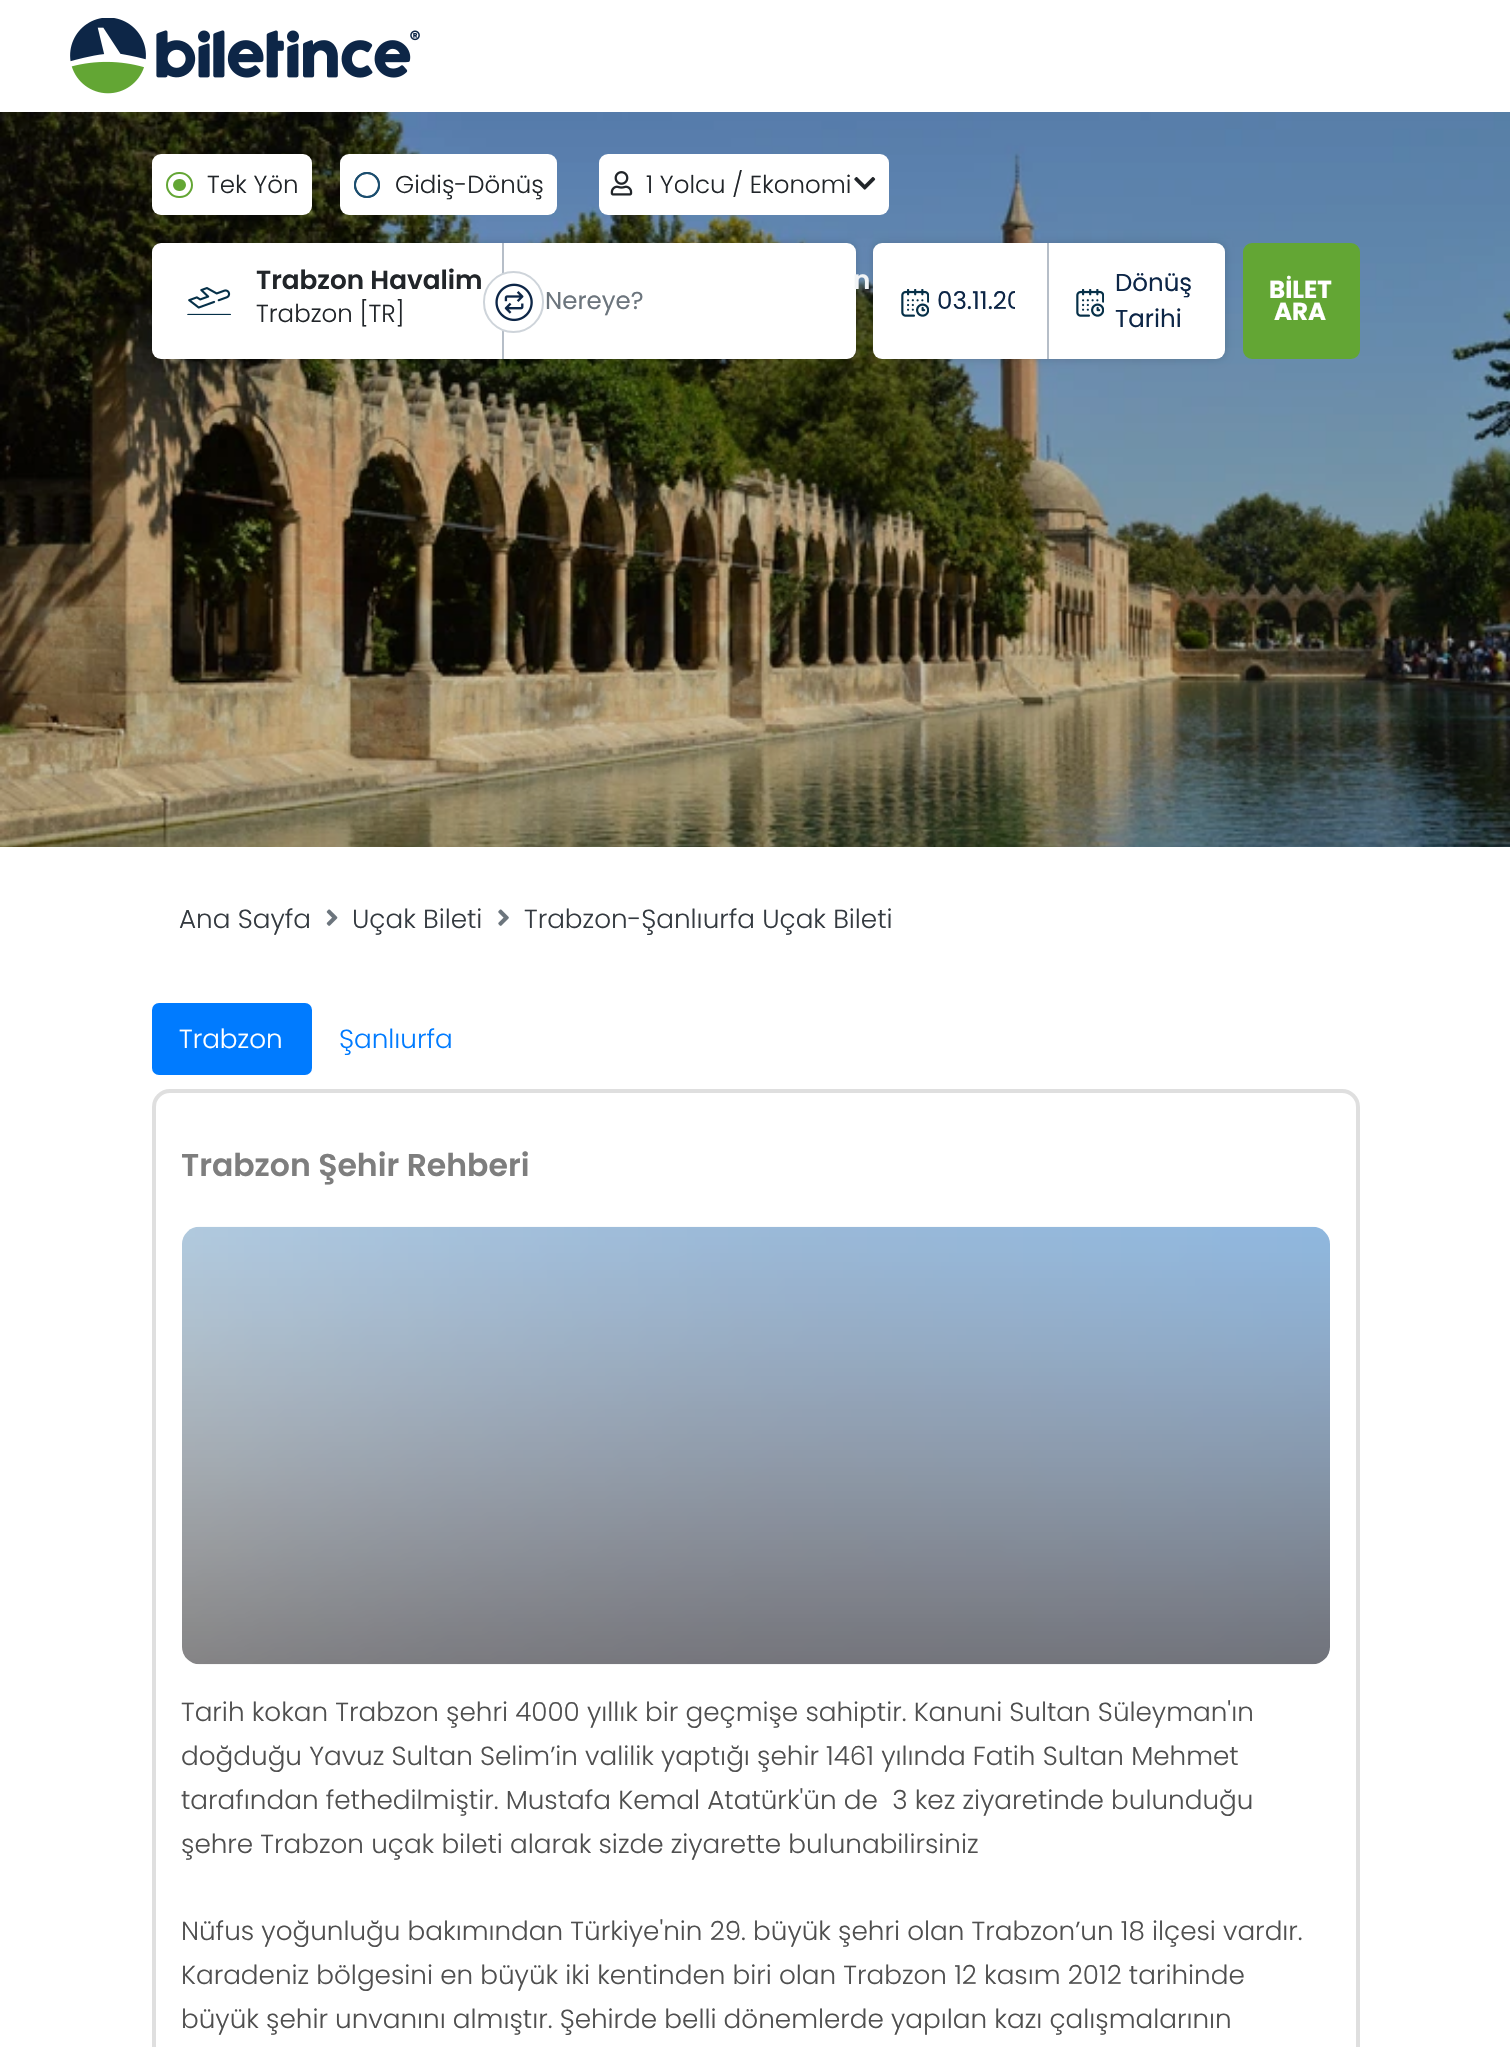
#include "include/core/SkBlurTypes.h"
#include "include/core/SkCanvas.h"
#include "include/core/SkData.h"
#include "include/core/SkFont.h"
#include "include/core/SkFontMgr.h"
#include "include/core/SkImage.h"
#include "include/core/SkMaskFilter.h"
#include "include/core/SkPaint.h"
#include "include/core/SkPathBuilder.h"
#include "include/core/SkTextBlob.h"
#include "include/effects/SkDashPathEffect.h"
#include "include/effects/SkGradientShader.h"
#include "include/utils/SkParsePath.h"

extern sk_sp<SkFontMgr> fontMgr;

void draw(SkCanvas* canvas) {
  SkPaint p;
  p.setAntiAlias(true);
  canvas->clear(SK_ColorWHITE);
  canvas->drawImageRect(SkImages::DeferredFromEncodedData(SkData::MakeFromFileName("images/1.png")), SkRect::MakeLTRB(70, 18, 420, 94), SkSamplingOptions());
  canvas->drawImageRect(SkImages::DeferredFromEncodedData(SkData::MakeFromFileName("images/2.png")), SkRect::MakeLTRB(0, 112, 1510, 847), SkSamplingOptions());
  p.setColor(SK_ColorWHITE);
  canvas->drawRoundRect(SkRect::MakeLTRB(152, 154, 312, 215), 9, 9, p);
  p.setStyle(SkPaint::kStroke_Style);
  p.setStrokeWidth(2);
  p.setColor(SkColorSetRGB(99, 166, 52));
  canvas->drawRoundRect(SkRect::MakeLTRB(167, 173, 192, 197), 12, 12, p);
  p.setStyle(SkPaint::kFill_Style);
  canvas->drawRoundRect(SkRect::MakeLTRB(174, 180, 185, 190), 5, 5, p);
  p.setStyle(SkPaint::kStroke_Style);
  canvas->drawRoundRect(SkRect::MakeLTRB(174, 180, 185, 190), 5, 5, p);
  p.setStyle(SkPaint::kFill_Style);
  p.setColor(SK_ColorWHITE);
  canvas->drawRoundRect(SkRect::MakeLTRB(340, 154, 557, 215), 9, 9, p);
  p.setStyle(SkPaint::kStroke_Style);
  p.setColor(SkColorSetRGB(27, 77, 110));
  canvas->drawCircle(367, 185, 12, p);
  canvas->drawCircle(367, 185, 12, p);
  p.setStyle(SkPaint::kFill_Style);
  p.setColor(SK_ColorWHITE);
  canvas->drawRoundRect(SkRect::MakeLTRB(599, 154, 889, 215), 9, 9, p);
  canvas->drawImageRect(SkImages::DeferredFromEncodedData(SkData::MakeFromFileName("images/3.png")), SkRect::MakeLTRB(610, 171, 633, 196), SkSamplingOptions());
  canvas->drawImageRect(SkImages::DeferredFromEncodedData(SkData::MakeFromFileName("images/4.png")), SkRect::MakeLTRB(854, 177, 876, 190), SkSamplingOptions());
  p.setColor(SkColorSetARGB(41, 0, 0, 0));
  p.setMaskFilter(SkMaskFilter::MakeBlur(kNormal_SkBlurStyle, 4.5f));
  canvas->drawRoundRect(SkRect::MakeLTRB(152, 243, 856, 359), 9, 9, p);
  p.setMaskFilter(nullptr);
  p.setColor(SK_ColorWHITE);
  canvas->drawRoundRect(SkRect::MakeLTRB(152, 243, 856, 359), 9, 9, p);
  p.setColor(SkColorSetRGB(182, 190, 200));
  canvas->drawRect(SkRect::MakeLTRB(502, 243, 504, 359), p);
  canvas->drawImageRect(SkImages::DeferredFromEncodedData(SkData::MakeFromFileName("images/5.png")), SkRect::MakeLTRB(187, 287, 231, 315), SkSamplingOptions());
  p.setColor(SK_ColorWHITE);
  canvas->drawRoundRect(SkRect::MakeLTRB(484, 272, 543, 332), 29.5f, 29.5f, p);
  p.setStyle(SkPaint::kStroke_Style);
  p.setColor(SkColorSetRGB(206, 212, 218));
  canvas->drawRoundRect(SkRect::MakeLTRB(484, 272, 543, 332), 29.5f, 29.5f, p);
  canvas->drawImageRect(SkImages::DeferredFromEncodedData(SkData::MakeFromFileName("images/6.png")), SkRect::MakeLTRB(495, 283, 533, 322), SkSamplingOptions());
  p.setStyle(SkPaint::kFill_Style);
  p.setColor(SkColorSetARGB(41, 0, 0, 0));
  p.setMaskFilter(SkMaskFilter::MakeBlur(kNormal_SkBlurStyle, 4.5f));
  canvas->drawRoundRect(SkRect::MakeLTRB(873, 243, 1225, 359), 9, 9, p);
  p.setMaskFilter(nullptr);
  p.setColor(SK_ColorWHITE);
  canvas->drawRoundRect(SkRect::MakeLTRB(873, 243, 1225, 359), 9, 9, p);
  p.setColor(SkColorSetRGB(182, 190, 200));
  canvas->drawRect(SkRect::MakeLTRB(1047, 243, 1049, 359), p);
  canvas->drawImageRect(SkImages::DeferredFromEncodedData(SkData::MakeFromFileName("images/7.png")), SkRect::MakeLTRB(901, 289, 929, 317), SkSamplingOptions());
  canvas->drawImageRect(SkImages::DeferredFromEncodedData(SkData::MakeFromFileName("images/7.png")), SkRect::MakeLTRB(1076, 289, 1104, 317), SkSamplingOptions());
  p.setColor(SkColorSetRGB(99, 166, 52));
  canvas->drawRoundRect(SkRect::MakeLTRB(1244, 244, 1359, 358), 8, 8, p);
  p.setStyle(SkPaint::kStroke_Style);
  canvas->drawRoundRect(SkRect::MakeLTRB(1244, 244, 1359, 358), 8, 8, p);
  canvas->drawImageRect(SkImages::DeferredFromEncodedData(SkData::MakeFromFileName("images/8.png")), SkRect::MakeLTRB(326, 909, 338, 926), SkSamplingOptions());
  canvas->drawImageRect(SkImages::DeferredFromEncodedData(SkData::MakeFromFileName("images/9.png")), SkRect::MakeLTRB(498, 909, 509, 926), SkSamplingOptions());
  p.setStyle(SkPaint::kFill_Style);
  p.setColor(SkColorSetRGB(0, 123, 255));
  canvas->drawRoundRect(SkRect::MakeLTRB(152, 1003, 312, 1075), 7, 7, p);
  p.setStyle(SkPaint::kStroke_Style);
  p.setStrokeWidth(4);
  p.setColor(SkColorSetRGB(223, 223, 223));
  canvas->drawRoundRect(SkRect::MakeLTRB(154, 1091, 1358, 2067), 16, 16, p);
  canvas->drawImageRect(SkImages::DeferredFromEncodedData(SkData::MakeFromFileName("images/10.png")), SkRect::MakeLTRB(182, 1226, 1330, 1665), SkSamplingOptions());
  SkFont font1(fontMgr->matchFamilyStyle("Poppins", SkFontStyle(300, SkFontStyle::kNormal_Width, SkFontStyle::kUpright_Slant)), 24.5f);
  font1.setSubpixel(true);
  p.setStyle(SkPaint::kFill_Style);
  p.setColor(SkColorSetRGB(33, 37, 41));
  canvas->drawString("Tek Yön", 207, 193, font1, p);
  canvas->drawString("Gidiş-Dönüş", 395, 193, font1, p);
  canvas->drawString("1 Yolcu / Ekonomi", 646, 193, font1, p);
  SkFont font2(fontMgr->matchFamilyStyle("Poppins", SkFontStyle(600, SkFontStyle::kNormal_Width, SkFontStyle::kUpright_Slant)), 26.25f);
  font2.setSubpixel(true);
  canvas->drawString("Trabzon Havalim", 256, 289, font2, p);
  canvas->drawString("Trabzon [TR]", 256, 322, font1, p);
  p.setColor(SkColorSetRGB(242, 244, 246));
  canvas->drawString("n", 853, 289, font2, p);
  SkFont font3(fontMgr->matchFamilyStyle("Poppins", SkFontStyle::Normal()), 24.5f);
  font3.setSubpixel(true);
  p.setColor(SkColorSetRGB(108, 117, 125));
  canvas->drawString("Nereye?", 545, 309, font3, p);
  canvas->save();
  canvas->clipRect(SkRect::MakeLTRB(938, 284, 1015, 320));
  p.setColor(SkColorSetRGB(13, 38, 71));
  canvas->drawString("03.11.20", 937, 309, font3, p);
  canvas->restore();
  canvas->drawString("Dönüş", 1115, 291, font3, p);
  canvas->drawString("Tarihi", 1115, 327, font3, p);
  SkFont font4(fontMgr->matchFamilyStyle("Poppins", SkFontStyle::Bold()), 24.5f);
  font4.setSubpixel(true);
  p.setColor(SK_ColorWHITE);
  canvas->drawString("BİLET", 1269, 298, font4, p);
  canvas->drawString("ARA", 1274, 320, font4, p);
  SkFont font5(fontMgr->matchFamilyStyle("Poppins", SkFontStyle(300, SkFontStyle::kNormal_Width, SkFontStyle::kUpright_Slant)), 26.25f);
  font5.setSubpixel(true);
  p.setColor(SkColorSetRGB(52, 58, 64));
  canvas->drawString("Ana Sayfa", 179, 928, font5, p);
  canvas->drawString("Uçak Bileti", 352, 928, font5, p);
  canvas->drawString("Trabzon-Şanlıurfa Uçak Bileti", 524, 928, font5, p);
  p.setColor(SK_ColorWHITE);
  canvas->drawString("Trabzon", 179, 1048, font5, p);
  p.setColor(SkColorSetRGB(0, 123, 255));
  canvas->drawString("Şanlıurfa", 339, 1048, font5, p);
  SkFont font6(fontMgr->matchFamilyStyle("Poppins", SkFontStyle(600, SkFontStyle::kNormal_Width, SkFontStyle::kUpright_Slant)), 31.5f);
  font6.setSubpixel(true);
  p.setColor(SkColorSetRGB(126, 126, 126));
  canvas->drawString("Trabzon Şehir Rehberi", 181, 1176, font6, p);
  p.setColor(SkColorSetRGB(79, 79, 79));
  canvas->drawString("Tarih kokan Trabzon şehri 4000 yıllık bir geçmişe sahiptir. Kanuni Sultan Süleyman'ın", 181, 1721, font5, p);
  canvas->drawString("doğduğu Yavuz Sultan Selim’in valilik yaptığı şehir 1461 yılında Fatih Sultan Mehmet", 181, 1765, font5, p);
  canvas->drawString("tarafından fethedilmiştir. Mustafa Kemal Atatürk'ün de  3 kez ziyaretinde bulunduğu", 181, 1809, font5, p);
  canvas->drawString("şehre Trabzon uçak bileti alarak sizde ziyarette bulunabilirsiniz", 181, 1853, font5, p);
  canvas->drawString("Nüfus yoğunluğu bakımından Türkiye'nin 29. büyük şehri olan Trabzon’un 18 ilçesi vardır.", 181, 1940, font5, p);
  canvas->drawString("Karadeniz bölgesini en büyük iki kentinden biri olan Trabzon 12 kasım 2012 tarihinde", 181, 1984, font5, p);
  canvas->drawString("büyük şehir unvanını almıştır. Şehirde belli dönemlerde yapılan kazı çalışmalarının", 181, 2028, font5, p);
}
